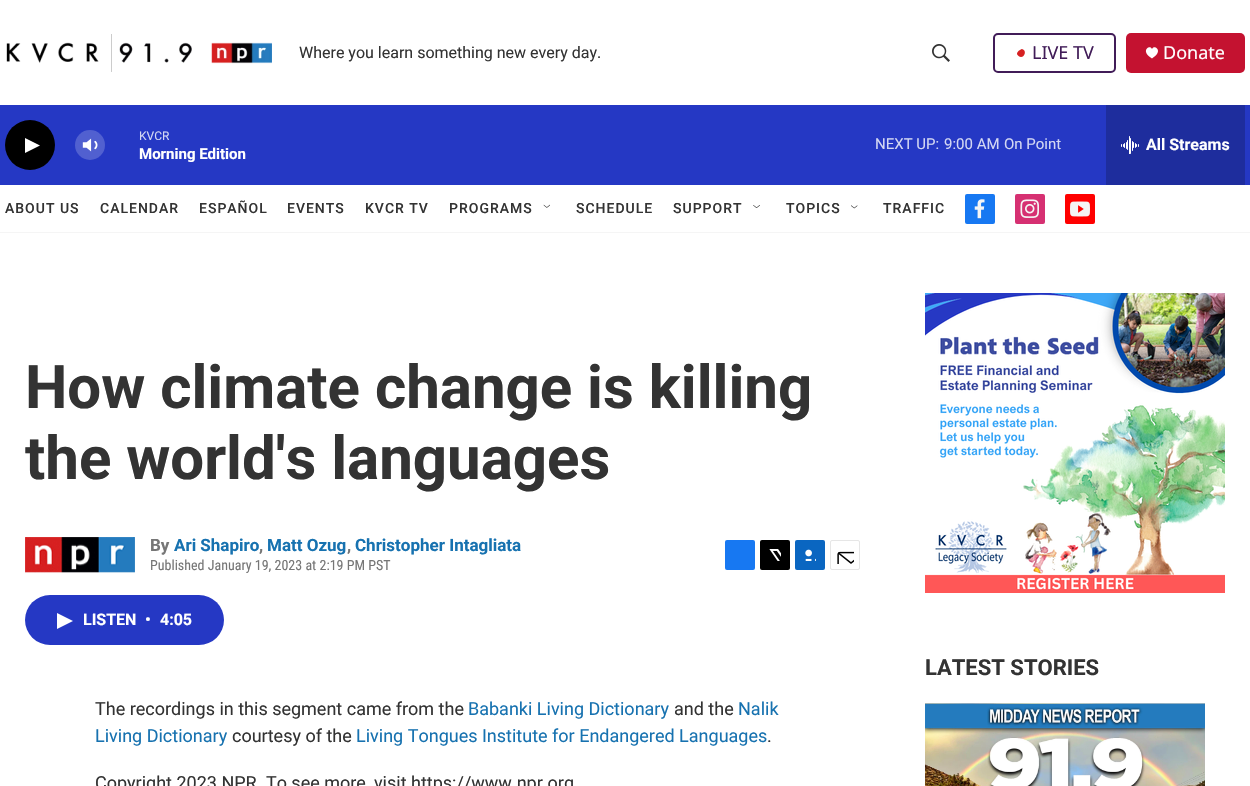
#include "include/core/SkBlurTypes.h"
#include "include/core/SkCanvas.h"
#include "include/core/SkData.h"
#include "include/core/SkFont.h"
#include "include/core/SkFontMgr.h"
#include "include/core/SkImage.h"
#include "include/core/SkMaskFilter.h"
#include "include/core/SkPaint.h"
#include "include/core/SkPathBuilder.h"
#include "include/core/SkTextBlob.h"
#include "include/effects/SkDashPathEffect.h"
#include "include/effects/SkGradientShader.h"
#include "include/utils/SkParsePath.h"

extern sk_sp<SkFontMgr> fontMgr;

void draw(SkCanvas* canvas) {
  SkPaint p;
  p.setAntiAlias(true);
  auto spacedText = [&](const char* s, float x, float y, const SkFont& font, const SkPaint& ink, float letter, float word) {
    std::vector<SkGlyphID> glyphs(font.countText(s, strlen(s), SkTextEncoding::kUTF8));
    std::vector<float> xs(glyphs.size());
    font.textToGlyphs(s, strlen(s), SkTextEncoding::kUTF8, glyphs);
    font.getXPos(glyphs, xs, x);
    float extra = 0;
    for (size_t i = 0; i < glyphs.size(); i++) {
      xs[i] += extra;
      extra += letter + word * (glyphs[i] == font.unicharToGlyph(' '));
    }
    canvas->drawTextBlob(SkTextBlob::MakeFromPosHGlyphs(glyphs, xs, y, font), 0, 0, ink);
  };
  canvas->clear(SK_ColorWHITE);
  p.setColor(SkColorSetRGB(245, 245, 245));
  canvas->drawRect(SkRect::MakeLTRB(0, 232, 1250, 233), p);
  canvas->drawImageRect(SkImages::DeferredFromEncodedData(SkData::MakeFromFileName("images/1.png")), SkRect::MakeLTRB(6, 34, 272, 72), SkSamplingOptions());
  canvas->drawImageRect(SkImages::DeferredFromEncodedData(SkData::MakeFromFileName("images/2.png")), SkRect::MakeLTRB(932, 44, 950, 62), SkSamplingOptions());
  p.setStyle(SkPaint::kStroke_Style);
  p.setStrokeWidth(2);
  p.setColor(SkColorSetRGB(65, 28, 88));
  canvas->drawRoundRect(SkRect::MakeLTRB(994, 34, 1115, 72), 4, 4, p);
  p.setStyle(SkPaint::kFill_Style);
  p.setColor(SkColorSetRGB(214, 32, 33));
  canvas->drawPath(SkPathBuilder().moveTo(1022, 49).cubicTo(1028, 50.5f, 1023.5f, 60, 1018.5f, 56).cubicTo(1018, 55.5f, 1017, 54.5f, 1017, 54).cubicTo(1017, 51.5f, 1020, 49.5f, 1022, 49).close().detach(), p);
  p.setColor(SkColorSetRGB(196, 18, 48));
  canvas->drawRoundRect(SkRect::MakeLTRB(1126, 33, 1245, 73), 5, 5, p);
  p.setColor(SK_ColorWHITE);
  canvas->drawPath(SkPathBuilder().moveTo(1152, 49).cubicTo(1150, 44, 1139.5f, 51, 1152, 58.5f).cubicTo(1164.5f, 51, 1154, 44, 1152, 49).close().detach(), p);
  p.setColor(SkColorSetRGB(37, 56, 196));
  canvas->drawRect(SkRect::MakeLTRB(0, 105, 1250, 185), p);
  p.setColor(SK_ColorBLACK);
  canvas->drawCircle(30, 145, 25, p);
  p.setColor(SK_ColorWHITE);
  canvas->drawPath(SkPathBuilder().moveTo(25, 138).lineTo(40, 145.5f).lineTo(25, 153).close().detach(), p);
  canvas->drawImageRect(SkImages::DeferredFromEncodedData(SkData::MakeFromFileName("images/3.png")), SkRect::MakeLTRB(82, 138, 98, 152), SkSamplingOptions());
  p.setColor(SkColorSetARGB(51, 255, 255, 255));
  canvas->drawCircle(90, 145, 15, p);
  p.setColor(SkColorSetRGB(30, 45, 157));
  canvas->drawRect(SkRect::MakeLTRB(1106, 105, 1245, 185), p);
  canvas->drawImageRect(SkImages::DeferredFromEncodedData(SkData::MakeFromFileName("images/4.png")), SkRect::MakeLTRB(1121, 136, 1139, 154), SkSamplingOptions());
  canvas->drawImageRect(SkImages::DeferredFromEncodedData(SkData::MakeFromFileName("images/5.png")), SkRect::MakeLTRB(543, 204, 550, 208), SkSamplingOptions());
  canvas->drawImageRect(SkImages::DeferredFromEncodedData(SkData::MakeFromFileName("images/6.png")), SkRect::MakeLTRB(753, 205, 760, 208), SkSamplingOptions());
  canvas->drawImageRect(SkImages::DeferredFromEncodedData(SkData::MakeFromFileName("images/7.png")), SkRect::MakeLTRB(851, 205, 858, 209), SkSamplingOptions());
  p.setColor(SkColorSetRGB(23, 120, 242));
  canvas->drawRoundRect(SkRect::MakeLTRB(965, 194, 995, 224), 2, 2, p);
  canvas->drawImageRect(SkImages::DeferredFromEncodedData(SkData::MakeFromFileName("images/8.png")), SkRect::MakeLTRB(974, 199, 985, 219), SkSamplingOptions());
  p.setColor(SkColorSetRGB(214, 48, 114));
  canvas->drawRoundRect(SkRect::MakeLTRB(1015, 194, 1045, 224), 2, 2, p);
  canvas->drawImageRect(SkImages::DeferredFromEncodedData(SkData::MakeFromFileName("images/9.png")), SkRect::MakeLTRB(1020, 199, 1039, 218), SkSamplingOptions());
  p.setColor(SkColorSetRGB(255, 0, 0));
  canvas->drawRoundRect(SkRect::MakeLTRB(1065, 194, 1095, 224), 2, 2, p);
  canvas->drawImageRect(SkImages::DeferredFromEncodedData(SkData::MakeFromFileName("images/10.png")), SkRect::MakeLTRB(1070, 201, 1090, 217), SkSamplingOptions());
  canvas->drawImageRect(SkImages::DeferredFromEncodedData(SkData::MakeFromFileName("images/11.png")), SkRect::MakeLTRB(25, 537, 135, 573), SkSamplingOptions());
  p.setColor(SkColorSetRGB(23, 120, 242));
  canvas->drawRoundRect(SkRect::MakeLTRB(725, 540, 755, 570), 2, 2, p);
  p.setColor(SK_ColorBLACK);
  canvas->drawRoundRect(SkRect::MakeLTRB(760, 540, 790, 570), 2, 2, p);
  canvas->drawImageRect(SkImages::DeferredFromEncodedData(SkData::MakeFromFileName("images/12.png")), SkRect::MakeLTRB(769, 549, 781, 561), SkSamplingOptions());
  p.setColor(SkColorSetRGB(10, 102, 193));
  canvas->drawRoundRect(SkRect::MakeLTRB(795, 540, 825, 570), 2, 2, p);
  canvas->drawImageRect(SkImages::DeferredFromEncodedData(SkData::MakeFromFileName("images/13.png")), SkRect::MakeLTRB(805, 549, 816, 561), SkSamplingOptions());
  p.setStyle(SkPaint::kStroke_Style);
  p.setStrokeWidth(1);
  p.setColor(SkColorSetRGB(230, 230, 230));
  canvas->drawRoundRect(SkRect::MakeLTRB(830.5f, 540.5f, 859.5f, 569.5f), 1.5f, 1.5f, p);
  canvas->drawImageRect(SkImages::DeferredFromEncodedData(SkData::MakeFromFileName("images/14.png")), SkRect::MakeLTRB(837, 551, 854, 564), SkSamplingOptions());
  p.setStyle(SkPaint::kFill_Style);
  p.setColor(SkColorSetRGB(37, 56, 196));
  canvas->drawRoundRect(SkRect::MakeLTRB(25, 595, 224, 645), 25, 25, p);
  p.setColor(SK_ColorWHITE);
  canvas->drawPath(SkPathBuilder().moveTo(57, 613).lineTo(73, 621).lineTo(57, 629).close().detach(), p);
  canvas->drawImageRect(SkImages::DeferredFromEncodedData(SkData::MakeFromFileName("images/15.png")), SkRect::MakeLTRB(925, 293, 1225, 593), SkSamplingOptions());
  canvas->drawImageRect(SkImages::DeferredFromEncodedData(SkData::MakeFromFileName("images/16.png")), SkRect::MakeLTRB(925, 703, 1205, 786), SkSamplingOptions());
  SkFont font1(fontMgr->matchFamilyStyle("Roboto", SkFontStyle::Normal()), 16);
  font1.setSubpixel(true);
  p.setColor(SkColorSetRGB(51, 51, 51));
  canvas->drawString("Where you learn something new every day.", 299, 58, font1, p);
  SkFont font2(fontMgr->matchFamilyStyle("Noto Sans", SkFontStyle::Normal()), 18);
  font2.setSubpixel(true);
  p.setColor(SkColorSetRGB(65, 28, 88));
  canvas->drawString("LIVE TV", 1032, 59, font2, p);
  p.setColor(SK_ColorWHITE);
  canvas->drawString("Donate", 1163, 59, font2, p);
  SkFont font3(fontMgr->matchFamilyStyle("Roboto", SkFontStyle::Normal()), 12);
  font3.setSubpixel(true);
  p.setColor(SkColorSetRGB(211, 215, 243));
  canvas->drawString("KVCR", 139, 140, font3, p);
  SkFont font4(fontMgr->matchFamilyStyle("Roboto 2", SkFontStyle::Bold()), 15);
  font4.setSubpixel(true);
  p.setColor(SK_ColorWHITE);
  canvas->drawString("Morning Edition", 139, 159, font4, p);
  SkFont font5(fontMgr->matchFamilyStyle("Roboto", SkFontStyle::Normal()), 15);
  font5.setSubpixel(true);
  p.setColor(SkColorSetRGB(211, 215, 243));
  canvas->drawString("NEXT UP:", 875, 149, font5, p);
  canvas->drawString("9:00 AM", 944, 149, font5, p);
  canvas->drawString("On Point", 1004, 149, font5, p);
  SkFont font6(fontMgr->matchFamilyStyle("Roboto 2", SkFontStyle::Bold()), 16);
  font6.setSubpixel(true);
  p.setColor(SK_ColorWHITE);
  canvas->drawString("All Streams", 1146, 150, font6, p);
  SkFont font7(fontMgr->matchFamilyStyle("Roboto", SkFontStyle(500, SkFontStyle::kNormal_Width, SkFontStyle::kUpright_Slant)), 14);
  font7.setSubpixel(true);
  p.setColor(SkColorSetRGB(51, 51, 51));
  spacedText("ABOUT US", 5, 213, font7, p, 1, 0);
  spacedText("CALENDAR", 100, 213, font7, p, 1, 0);
  spacedText("ESPAÑOL", 199, 213, font7, p, 1, 0);
  spacedText("EVENTS", 287, 213, font7, p, 1, 0);
  spacedText("KVCR TV", 365, 213, font7, p, 1, 0);
  spacedText("PROGRAMS", 449, 213, font7, p, 1, 0);
  spacedText("SCHEDULE", 576, 213, font7, p, 1, 0);
  spacedText("SUPPORT", 673, 213, font7, p, 1, 0);
  spacedText("TOPICS", 786, 213, font7, p, 1, 0);
  spacedText("TRAFFIC", 883, 213, font7, p, 1, 0);
  SkFont font8(fontMgr->matchFamilyStyle("Roboto", SkFontStyle::Bold()), 60);
  font8.setSubpixel(true);
  canvas->drawString("How climate change is killing", 25, 408, font8, p);
  canvas->drawString("the world's languages", 25, 479, font8, p);
  SkFont font9(fontMgr->matchFamilyStyle("Roboto", SkFontStyle::Bold()), 17);
  font9.setSubpixel(true);
  p.setColor(SkColorSetRGB(118, 118, 118));
  canvas->drawString("By", 150, 551, font9, p);
  p.setColor(SkColorSetRGB(23, 114, 176));
  canvas->drawString("Ari Shapiro", 174, 551, font9, p);
  p.setColor(SkColorSetRGB(118, 118, 118));
  canvas->drawString(",", 259, 551, font9, p);
  p.setColor(SkColorSetRGB(23, 114, 176));
  canvas->drawString("Matt Ozug", 267, 551, font9, p);
  p.setColor(SkColorSetRGB(118, 118, 118));
  canvas->drawString(",", 347, 551, font9, p);
  p.setColor(SkColorSetRGB(23, 114, 176));
  canvas->drawString("Christopher Intagliata", 355, 551, font9, p);
  SkFont font10(fontMgr->matchFamilyStyle("Roboto Condensed", SkFontStyle::Normal()), 14);
  font10.setSubpixel(true);
  p.setColor(SkColorSetRGB(118, 118, 118));
  canvas->drawString("Published January 19, 2023 at 2:19 PM PST", 150, 570, font10, p);
  p.setColor(SK_ColorWHITE);
  canvas->drawString("LISTEN", 83, 625, font6, p);
  canvas->drawString("•", 145, 625, font6, p);
  canvas->drawString("4:05", 160, 625, font6, p);
  SkFont font11(fontMgr->matchFamilyStyle("Roboto", SkFontStyle::Normal()), 18);
  font11.setSubpixel(true);
  p.setColor(SkColorSetRGB(51, 51, 51));
  canvas->drawString("The recordings in this segment came from the", 95, 715, font11, p);
  p.setColor(SkColorSetRGB(23, 114, 176));
  canvas->drawString("Babanki Living Dictionary", 468, 715, font11, p);
  p.setColor(SkColorSetRGB(51, 51, 51));
  canvas->drawString("and the", 674, 715, font11, p);
  p.setColor(SkColorSetRGB(23, 114, 176));
  canvas->drawString("Nalik", 738, 715, font11, p);
  canvas->drawString("Living Dictionary", 95, 742, font11, p);
  p.setColor(SkColorSetRGB(51, 51, 51));
  canvas->drawString("courtesy of the", 232, 742, font11, p);
  p.setColor(SkColorSetRGB(23, 114, 176));
  canvas->drawString("Living Tongues Institute for Endangered Languages", 356, 742, font11, p);
  p.setColor(SkColorSetRGB(51, 51, 51));
  canvas->drawString(".", 767, 742, font11, p);
  canvas->drawString("Copyright 2023 NPR. To see more, visit https://www.npr.org", 95, 789, font11, p);
  SkFont font12(fontMgr->matchFamilyStyle("Roboto", SkFontStyle::Bold()), 22);
  font12.setSubpixel(true);
  canvas->drawString("LATEST STORIES", 925, 675, font12, p);
}
